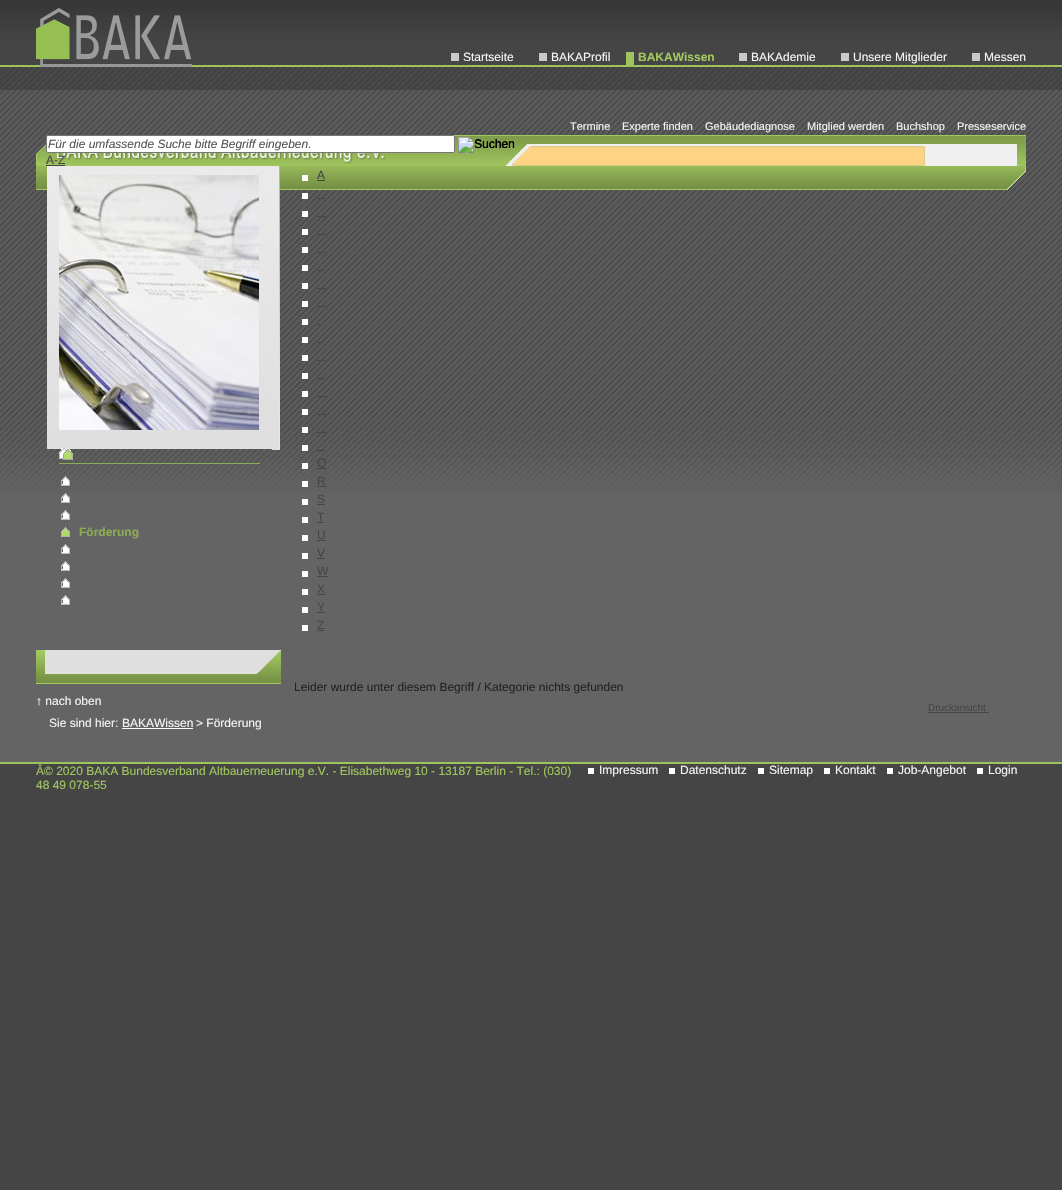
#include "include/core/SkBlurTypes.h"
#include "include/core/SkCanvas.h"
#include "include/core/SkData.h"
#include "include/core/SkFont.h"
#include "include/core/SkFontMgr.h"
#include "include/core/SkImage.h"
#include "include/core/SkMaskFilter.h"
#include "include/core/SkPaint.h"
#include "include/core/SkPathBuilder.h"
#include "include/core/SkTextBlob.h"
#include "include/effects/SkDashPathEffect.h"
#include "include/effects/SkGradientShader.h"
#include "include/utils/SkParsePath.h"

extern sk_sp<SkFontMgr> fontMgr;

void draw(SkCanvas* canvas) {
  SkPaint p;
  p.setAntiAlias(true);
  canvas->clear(SkColorSetRGB(69, 69, 69));
  canvas->drawImageRect(SkImages::DeferredFromEncodedData(SkData::MakeFromFileName("images/1.png")), SkRect::MakeLTRB(0, 0, 1062, 65), SkSamplingOptions());
  p.setColor(SkColorSetRGB(159, 195, 93));
  canvas->drawRect(SkRect::MakeLTRB(0, 65, 1062, 67), p);
  canvas->drawImageRect(SkImages::DeferredFromEncodedData(SkData::MakeFromFileName("images/2.png")), SkRect::MakeLTRB(36, 8, 192, 67), SkSamplingOptions());
  p.setColor(SkColorSetRGB(201, 201, 201));
  canvas->drawRect(SkRect::MakeLTRB(451, 53, 459, 61), p);
  canvas->drawRect(SkRect::MakeLTRB(539, 53, 547, 61), p);
  p.setColor(SkColorSetRGB(159, 195, 93));
  canvas->drawRect(SkRect::MakeLTRB(626, 52, 634, 65), p);
  p.setColor(SkColorSetRGB(201, 201, 201));
  canvas->drawRect(SkRect::MakeLTRB(739, 53, 747, 61), p);
  canvas->drawRect(SkRect::MakeLTRB(841, 53, 849, 61), p);
  canvas->drawRect(SkRect::MakeLTRB(972, 53, 980, 61), p);
  canvas->drawImageRect(SkImages::DeferredFromEncodedData(SkData::MakeFromFileName("images/3.png")), SkRect::MakeLTRB(2, 67, 1062, 89), SkSamplingOptions());
  canvas->drawImageRect(SkImages::DeferredFromEncodedData(SkData::MakeFromFileName("images/4.png")), SkRect::MakeLTRB(0, 90, 1062, 157), SkSamplingOptions());
  canvas->drawImageRect(SkImages::DeferredFromEncodedData(SkData::MakeFromFileName("images/7.png")), SkRect::MakeLTRB(0, 157, 1062, 493), SkSamplingOptions());
  canvas->drawImageRect(SkImages::DeferredFromEncodedData(SkData::MakeFromFileName("images/5.png")), SkRect::MakeLTRB(36, 135, 1026, 166), SkSamplingOptions());
  p.setColor(SK_ColorWHITE);
  canvas->drawRoundRect(SkRect::MakeLTRB(46.5f, 135.5f, 454.5f, 152.5f), 1.5f, 1.5f, p);
  p.setStyle(SkPaint::kStroke_Style);
  p.setStrokeWidth(1);
  p.setColor(SkColorSetRGB(118, 118, 118));
  canvas->drawRoundRect(SkRect::MakeLTRB(46.5f, 135.5f, 454.5f, 152.5f), 1.5f, 1.5f, p);
  canvas->drawImageRect(SkImages::DeferredFromEncodedData(SkData::MakeFromFileName("images/6.png")), SkRect::MakeLTRB(458, 137, 515, 153), SkSamplingOptions());
  p.setStyle(SkPaint::kFill_Style);
  p.setColor(SkColorSetRGB(69, 69, 69));
  canvas->drawRect(SkRect::MakeLTRB(46, 165, 65, 166), p);
  p.setColor(SkColorSetRGB(100, 100, 100));
  canvas->drawRect(SkRect::MakeLTRB(0, 493, 1062, 762), p);
  canvas->drawImageRect(SkImages::DeferredFromEncodedData(SkData::MakeFromFileName("images/15.png")), SkRect::MakeLTRB(36, 166, 1026, 190), SkSamplingOptions());
  canvas->drawImageRect(SkImages::DeferredFromEncodedData(SkData::MakeFromFileName("images/8.png")), SkRect::MakeLTRB(47, 166, 272, 449), SkSamplingOptions());
  canvas->drawImageRect(SkImages::DeferredFromEncodedData(SkData::MakeFromFileName("images/9.png")), SkRect::MakeLTRB(59, 175, 259, 430), SkSamplingOptions());
  canvas->drawImageRect(SkImages::DeferredFromEncodedData(SkData::MakeFromFileName("images/10.png")), SkRect::MakeLTRB(59, 448, 73, 460), SkSamplingOptions());
  p.setColor(SkColorSetRGB(141, 173, 83));
  canvas->drawRect(SkRect::MakeLTRB(59, 463, 260, 464), p);
  canvas->drawImageRect(SkImages::DeferredFromEncodedData(SkData::MakeFromFileName("images/11.png")), SkRect::MakeLTRB(61, 476, 70, 486), SkSamplingOptions());
  canvas->drawImageRect(SkImages::DeferredFromEncodedData(SkData::MakeFromFileName("images/12.png")), SkRect::MakeLTRB(61, 493, 70, 503), SkSamplingOptions());
  canvas->drawImageRect(SkImages::DeferredFromEncodedData(SkData::MakeFromFileName("images/12.png")), SkRect::MakeLTRB(61, 510, 70, 520), SkSamplingOptions());
  canvas->drawImageRect(SkImages::DeferredFromEncodedData(SkData::MakeFromFileName("images/13.png")), SkRect::MakeLTRB(61, 527, 70, 537), SkSamplingOptions());
  canvas->drawImageRect(SkImages::DeferredFromEncodedData(SkData::MakeFromFileName("images/12.png")), SkRect::MakeLTRB(61, 544, 70, 554), SkSamplingOptions());
  canvas->drawImageRect(SkImages::DeferredFromEncodedData(SkData::MakeFromFileName("images/12.png")), SkRect::MakeLTRB(61, 561, 70, 571), SkSamplingOptions());
  canvas->drawImageRect(SkImages::DeferredFromEncodedData(SkData::MakeFromFileName("images/12.png")), SkRect::MakeLTRB(61, 578, 70, 588), SkSamplingOptions());
  canvas->drawImageRect(SkImages::DeferredFromEncodedData(SkData::MakeFromFileName("images/12.png")), SkRect::MakeLTRB(61, 595, 70, 605), SkSamplingOptions());
  canvas->drawImageRect(SkImages::DeferredFromEncodedData(SkData::MakeFromFileName("images/14.png")), SkRect::MakeLTRB(272, 166, 280, 450), SkSamplingOptions());
  p.setColor(SK_ColorWHITE);
  canvas->drawRect(SkRect::MakeLTRB(302, 175, 308, 181), p);
  p.setColor(SkColorSetRGB(69, 69, 69));
  canvas->drawRect(SkRect::MakeLTRB(317, 180, 325, 181), p);
  p.setColor(SK_ColorWHITE);
  canvas->drawRect(SkRect::MakeLTRB(302, 193, 308, 199), p);
  p.setColor(SkColorSetRGB(69, 69, 69));
  canvas->drawRect(SkRect::MakeLTRB(317, 198, 325, 199), p);
  p.setColor(SK_ColorWHITE);
  canvas->drawRect(SkRect::MakeLTRB(302, 211, 308, 217), p);
  p.setColor(SkColorSetRGB(69, 69, 69));
  canvas->drawRect(SkRect::MakeLTRB(317, 216, 326, 217), p);
  p.setColor(SK_ColorWHITE);
  canvas->drawRect(SkRect::MakeLTRB(302, 229, 308, 235), p);
  p.setColor(SkColorSetRGB(69, 69, 69));
  canvas->drawRect(SkRect::MakeLTRB(317, 234, 326, 235), p);
  p.setColor(SK_ColorWHITE);
  canvas->drawRect(SkRect::MakeLTRB(302, 247, 308, 253), p);
  p.setColor(SkColorSetRGB(69, 69, 69));
  canvas->drawRect(SkRect::MakeLTRB(317, 252, 325, 253), p);
  p.setColor(SK_ColorWHITE);
  canvas->drawRect(SkRect::MakeLTRB(302, 265, 308, 271), p);
  p.setColor(SkColorSetRGB(69, 69, 69));
  canvas->drawRect(SkRect::MakeLTRB(317, 270, 324, 271), p);
  p.setColor(SK_ColorWHITE);
  canvas->drawRect(SkRect::MakeLTRB(302, 283, 308, 289), p);
  p.setColor(SkColorSetRGB(69, 69, 69));
  canvas->drawRect(SkRect::MakeLTRB(317, 288, 326, 289), p);
  p.setColor(SK_ColorWHITE);
  canvas->drawRect(SkRect::MakeLTRB(302, 301, 308, 307), p);
  p.setColor(SkColorSetRGB(69, 69, 69));
  canvas->drawRect(SkRect::MakeLTRB(317, 306, 326, 307), p);
  p.setColor(SK_ColorWHITE);
  canvas->drawRect(SkRect::MakeLTRB(302, 319, 308, 325), p);
  p.setColor(SkColorSetRGB(69, 69, 69));
  canvas->drawRect(SkRect::MakeLTRB(317, 324, 320, 325), p);
  p.setColor(SK_ColorWHITE);
  canvas->drawRect(SkRect::MakeLTRB(302, 337, 308, 343), p);
  p.setColor(SkColorSetRGB(69, 69, 69));
  canvas->drawRect(SkRect::MakeLTRB(317, 342, 323, 343), p);
  p.setColor(SK_ColorWHITE);
  canvas->drawRect(SkRect::MakeLTRB(302, 355, 308, 361), p);
  p.setColor(SkColorSetRGB(69, 69, 69));
  canvas->drawRect(SkRect::MakeLTRB(317, 360, 325, 361), p);
  p.setColor(SK_ColorWHITE);
  canvas->drawRect(SkRect::MakeLTRB(302, 373, 308, 379), p);
  p.setColor(SkColorSetRGB(69, 69, 69));
  canvas->drawRect(SkRect::MakeLTRB(317, 378, 324, 379), p);
  p.setColor(SK_ColorWHITE);
  canvas->drawRect(SkRect::MakeLTRB(302, 391, 308, 397), p);
  p.setColor(SkColorSetRGB(69, 69, 69));
  canvas->drawRect(SkRect::MakeLTRB(317, 396, 327, 397), p);
  p.setColor(SK_ColorWHITE);
  canvas->drawRect(SkRect::MakeLTRB(302, 409, 308, 415), p);
  p.setColor(SkColorSetRGB(69, 69, 69));
  canvas->drawRect(SkRect::MakeLTRB(317, 414, 326, 415), p);
  p.setColor(SK_ColorWHITE);
  canvas->drawRect(SkRect::MakeLTRB(302, 427, 308, 433), p);
  p.setColor(SkColorSetRGB(69, 69, 69));
  canvas->drawRect(SkRect::MakeLTRB(317, 432, 326, 433), p);
  p.setColor(SK_ColorWHITE);
  canvas->drawRect(SkRect::MakeLTRB(302, 445, 308, 451), p);
  p.setColor(SkColorSetRGB(69, 69, 69));
  canvas->drawRect(SkRect::MakeLTRB(317, 450, 325, 451), p);
  p.setColor(SK_ColorWHITE);
  canvas->drawRect(SkRect::MakeLTRB(302, 463, 308, 469), p);
  p.setColor(SkColorSetRGB(69, 69, 69));
  canvas->drawRect(SkRect::MakeLTRB(317, 468, 326, 469), p);
  p.setColor(SK_ColorWHITE);
  canvas->drawRect(SkRect::MakeLTRB(302, 481, 308, 487), p);
  p.setColor(SkColorSetRGB(69, 69, 69));
  canvas->drawRect(SkRect::MakeLTRB(317, 486, 326, 487), p);
  p.setColor(SK_ColorWHITE);
  canvas->drawRect(SkRect::MakeLTRB(302, 499, 308, 505), p);
  p.setColor(SkColorSetRGB(69, 69, 69));
  canvas->drawRect(SkRect::MakeLTRB(317, 504, 325, 505), p);
  p.setColor(SK_ColorWHITE);
  canvas->drawRect(SkRect::MakeLTRB(302, 517, 308, 523), p);
  p.setColor(SkColorSetRGB(69, 69, 69));
  canvas->drawRect(SkRect::MakeLTRB(317, 522, 324, 523), p);
  p.setColor(SK_ColorWHITE);
  canvas->drawRect(SkRect::MakeLTRB(302, 535, 308, 541), p);
  p.setColor(SkColorSetRGB(69, 69, 69));
  canvas->drawRect(SkRect::MakeLTRB(317, 540, 326, 541), p);
  p.setColor(SK_ColorWHITE);
  canvas->drawRect(SkRect::MakeLTRB(302, 553, 308, 559), p);
  p.setColor(SkColorSetRGB(69, 69, 69));
  canvas->drawRect(SkRect::MakeLTRB(317, 558, 325, 559), p);
  p.setColor(SK_ColorWHITE);
  canvas->drawRect(SkRect::MakeLTRB(302, 571, 308, 577), p);
  p.setColor(SkColorSetRGB(69, 69, 69));
  canvas->drawRect(SkRect::MakeLTRB(317, 576, 328, 577), p);
  p.setColor(SK_ColorWHITE);
  canvas->drawRect(SkRect::MakeLTRB(302, 589, 308, 595), p);
  p.setColor(SkColorSetRGB(69, 69, 69));
  canvas->drawRect(SkRect::MakeLTRB(317, 594, 325, 595), p);
  p.setColor(SK_ColorWHITE);
  canvas->drawRect(SkRect::MakeLTRB(302, 607, 308, 613), p);
  p.setColor(SkColorSetRGB(69, 69, 69));
  canvas->drawRect(SkRect::MakeLTRB(317, 612, 325, 613), p);
  p.setColor(SK_ColorWHITE);
  canvas->drawRect(SkRect::MakeLTRB(302, 625, 308, 631), p);
  p.setColor(SkColorSetRGB(69, 69, 69));
  canvas->drawRect(SkRect::MakeLTRB(317, 630, 324, 631), p);
  canvas->drawRect(SkRect::MakeLTRB(928, 712, 989, 713), p);
  canvas->drawImageRect(SkImages::DeferredFromEncodedData(SkData::MakeFromFileName("images/16.png")), SkRect::MakeLTRB(36, 650, 281, 684), SkSamplingOptions());
  p.setColor(SkColorSetRGB(249, 249, 249));
  canvas->drawRect(SkRect::MakeLTRB(122, 728, 193, 729), p);
  p.setColor(SkColorSetRGB(159, 195, 93));
  canvas->drawRect(SkRect::MakeLTRB(0, 762, 1062, 764), p);
  p.setColor(SK_ColorWHITE);
  canvas->drawRect(SkRect::MakeLTRB(588, 768, 594, 774), p);
  canvas->drawRect(SkRect::MakeLTRB(669, 768, 675, 774), p);
  canvas->drawRect(SkRect::MakeLTRB(758, 768, 764, 774), p);
  canvas->drawRect(SkRect::MakeLTRB(824, 768, 830, 774), p);
  canvas->drawRect(SkRect::MakeLTRB(887, 768, 893, 774), p);
  canvas->drawRect(SkRect::MakeLTRB(977, 768, 983, 774), p);
  SkFont font1(fontMgr->matchFamilyStyle("Liberation Sans", SkFontStyle::Normal()), 12);
  font1.setSubpixel(true);
  p.setColor(SkColorSetRGB(244, 244, 244));
  canvas->drawString("Startseite", 463, 61, font1, p);
  canvas->drawString("BAKAProfil", 551, 61, font1, p);
  SkFont font2(fontMgr->matchFamilyStyle("Liberation Sans", SkFontStyle::Bold()), 12);
  font2.setSubpixel(true);
  p.setColor(SkColorSetRGB(162, 199, 95));
  canvas->drawString("BAKAWissen", 638, 61, font2, p);
  p.setColor(SkColorSetRGB(244, 244, 244));
  canvas->drawString("BAKAdemie", 751, 61, font1, p);
  canvas->drawString("Unsere Mitglieder", 853, 61, font1, p);
  canvas->drawString("Messen", 984, 61, font1, p);
  SkFont font3(fontMgr->matchFamilyStyle("Liberation Sans", SkFontStyle::Normal()), 11);
  font3.setSubpixel(true);
  canvas->drawString("Termine", 570, 130, font3, p);
  canvas->drawString("Experte finden", 622, 130, font3, p);
  canvas->drawString("Gebäudediagnose", 705, 130, font3, p);
  canvas->drawString("Mitglied werden", 807, 130, font3, p);
  canvas->drawString("Buchshop", 896, 130, font3, p);
  canvas->drawString("Presseservice", 957, 130, font3, p);
  SkFont font4(fontMgr->matchFamilyStyle("Liberation Sans", SkFontStyle::Italic()), 12);
  font4.setSubpixel(true);
  p.setColor(SkColorSetRGB(85, 85, 85));
  canvas->drawString("Für die umfassende Suche bitte Begriff eingeben.", 48, 148, font4, p);
  p.setColor(SK_ColorBLACK);
  canvas->drawString("Suchen", 474, 148, font1, p);
  p.setColor(SkColorSetRGB(69, 69, 69));
  canvas->drawString("A-Z", 46, 164, font1, p);
  p.setColor(SkColorSetRGB(141, 173, 83));
  canvas->drawString("Förderung", 79, 536, font2, p);
  p.setColor(SkColorSetRGB(69, 69, 69));
  canvas->drawString("A", 317, 179, font1, p);
  canvas->drawString("Q", 317, 467, font1, p);
  canvas->drawString("R", 317, 485, font1, p);
  canvas->drawString("S", 317, 503, font1, p);
  canvas->drawString("T", 317, 521, font1, p);
  canvas->drawString("U", 317, 539, font1, p);
  canvas->drawString("V", 317, 557, font1, p);
  canvas->drawString("W", 317, 575, font1, p);
  canvas->drawString("X", 317, 593, font1, p);
  canvas->drawString("Y", 317, 611, font1, p);
  canvas->drawString("Z", 317, 629, font1, p);
  p.setColor(SkColorSetRGB(34, 34, 34));
  canvas->drawString("Leider wurde unter diesem Begriff / Kategorie nichts gefunden", 294, 691, font1, p);
  SkFont font5(fontMgr->matchFamilyStyle("Liberation Sans", SkFontStyle::Normal()), 10);
  font5.setSubpixel(true);
  p.setColor(SkColorSetRGB(69, 69, 69));
  canvas->drawString("Druckansicht", 928, 711, font5, p);
  p.setColor(SkColorSetRGB(244, 244, 244));
  canvas->drawString("↑ nach oben", 36, 705, font1, p);
  canvas->drawString("Sie sind hier:", 49, 727, font1, p);
  canvas->drawString("BAKAWissen", 122, 727, font1, p);
  canvas->drawString("> Förderung", 196, 727, font1, p);
  p.setColor(SkColorSetRGB(162, 199, 95));
  canvas->drawString("Â© 2020 BAKA Bundesverband Altbauerneuerung e.V. - Elisabethweg 10 - 13187 Berlin - Tel.: (030)", 36, 775, font1, p);
  canvas->drawString("48 49 078-55", 36, 789, font1, p);
  p.setColor(SkColorSetRGB(244, 244, 244));
  canvas->drawString("Impressum", 599, 774, font1, p);
  canvas->drawString("Datenschutz", 680, 774, font1, p);
  canvas->drawString("Sitemap", 769, 774, font1, p);
  canvas->drawString("Kontakt", 835, 774, font1, p);
  canvas->drawString("Job-Angebot", 898, 774, font1, p);
  canvas->drawString("Login", 988, 774, font1, p);
}
